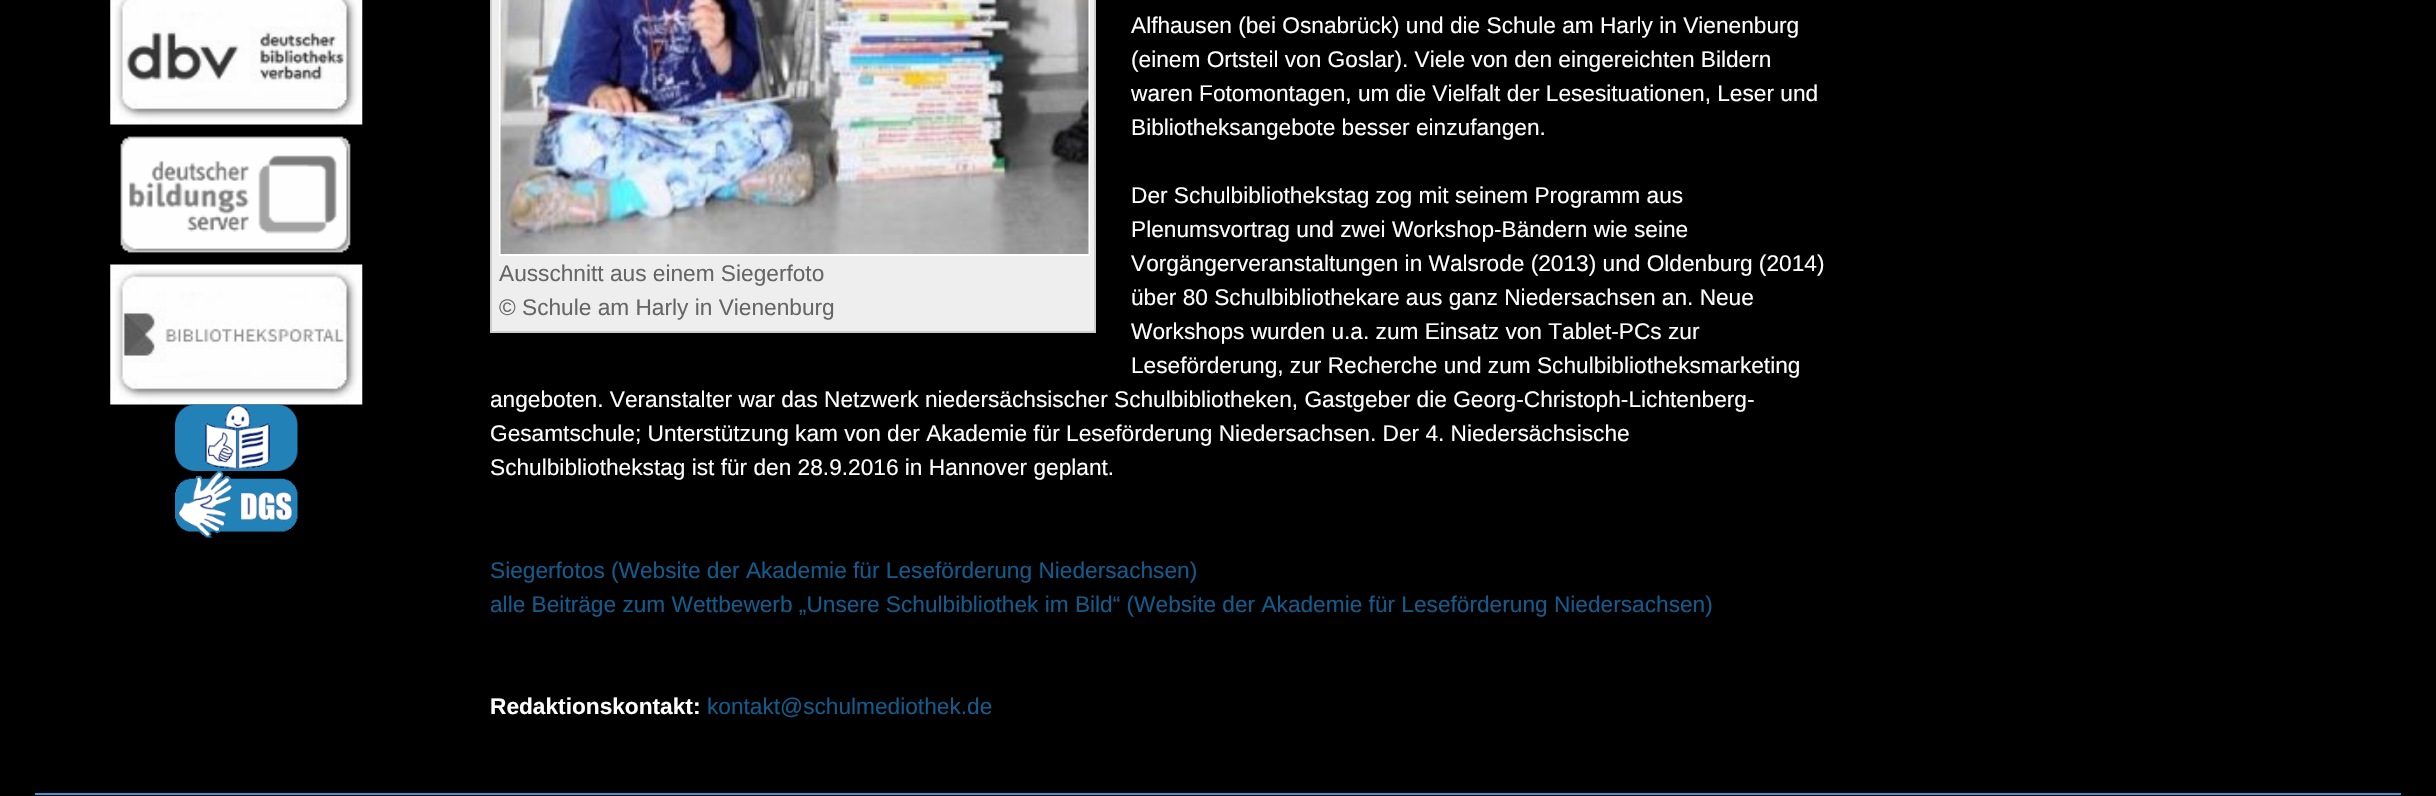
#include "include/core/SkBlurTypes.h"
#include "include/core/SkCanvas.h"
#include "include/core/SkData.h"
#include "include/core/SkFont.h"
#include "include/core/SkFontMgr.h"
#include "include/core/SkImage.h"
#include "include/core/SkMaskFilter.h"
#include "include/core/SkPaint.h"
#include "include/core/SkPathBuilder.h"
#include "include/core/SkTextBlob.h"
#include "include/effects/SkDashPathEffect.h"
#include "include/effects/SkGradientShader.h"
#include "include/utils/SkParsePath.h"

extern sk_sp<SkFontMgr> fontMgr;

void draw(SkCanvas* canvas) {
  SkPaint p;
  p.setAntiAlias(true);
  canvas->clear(SK_ColorBLACK);
  canvas->drawImageRect(SkImages::DeferredFromEncodedData(SkData::MakeFromFileName("images/1.png")), SkRect::MakeLTRB(110, 0, 363, 125), SkSamplingOptions());
  canvas->drawImageRect(SkImages::DeferredFromEncodedData(SkData::MakeFromFileName("images/2.png")), SkRect::MakeLTRB(120, 136, 351, 253), SkSamplingOptions());
  canvas->drawImageRect(SkImages::DeferredFromEncodedData(SkData::MakeFromFileName("images/3.png")), SkRect::MakeLTRB(110, 264, 363, 405), SkSamplingOptions());
  canvas->drawImageRect(SkImages::DeferredFromEncodedData(SkData::MakeFromFileName("images/4.png")), SkRect::MakeLTRB(175, 404, 298, 471), SkSamplingOptions());
  canvas->drawImageRect(SkImages::DeferredFromEncodedData(SkData::MakeFromFileName("images/5.png")), SkRect::MakeLTRB(175, 471, 298, 538), SkSamplingOptions());
  p.setColor(SkColorSetRGB(238, 238, 238));
  canvas->drawRect(SkRect::MakeLTRB(491, -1, 1095, 332), p);
  p.setStyle(SkPaint::kStroke_Style);
  p.setStrokeWidth(2);
  p.setColor(SkColorSetRGB(206, 206, 206));
  canvas->drawRect(SkRect::MakeLTRB(491, -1, 1095, 332), p);
  p.setColor(SK_ColorWHITE);
  canvas->drawRect(SkRect::MakeLTRB(500, -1, 1089, 255), p);
  canvas->drawImageRect(SkImages::DeferredFromEncodedData(SkData::MakeFromFileName("images/6.png")), SkRect::MakeLTRB(500, 0, 1089, 254), SkSamplingOptions());
  p.setStyle(SkPaint::kFill_Style);
  p.setColor(SkColorSetRGB(53, 153, 219));
  canvas->drawRect(SkRect::MakeLTRB(35, 793, 2401, 795), p);
  SkFont font1(fontMgr->matchFamilyStyle("Liberation Sans", SkFontStyle::Normal()), 22.68f);
  font1.setSubpixel(true);
  p.setColor(SK_ColorWHITE);
  canvas->drawString("Alfhausen (bei Osnabrück) und die Schule am Harly in Vienenburg", 1131, 33, font1, p);
  canvas->drawString("(einem Ortsteil von Goslar). Viele von den eingereichten Bildern", 1131, 67, font1, p);
  canvas->drawString("waren Fotomontagen, um die Vielfalt der Lesesituationen, Leser und", 1131, 101, font1, p);
  canvas->drawString("Bibliotheksangebote besser einzufangen.", 1131, 135, font1, p);
  canvas->drawString("Der Schulbibliothekstag zog mit seinem Programm aus", 1131, 203, font1, p);
  canvas->drawString("Plenumsvortrag und zwei Workshop-Bändern wie seine", 1131, 237, font1, p);
  p.setColor(SkColorSetRGB(102, 102, 102));
  canvas->drawString("Ausschnitt aus einem Siegerfoto", 499, 281, font1, p);
  canvas->drawString("© Schule am Harly in Vienenburg", 499, 315, font1, p);
  p.setColor(SK_ColorWHITE);
  canvas->drawString("Vorgängerveranstaltungen in Walsrode (2013) und Oldenburg (2014)", 1131, 271, font1, p);
  canvas->drawString("über 80 Schulbibliothekare aus ganz Niedersachsen an. Neue", 1131, 305, font1, p);
  canvas->drawString("Workshops wurden u.a. zum Einsatz von Tablet-PCs zur", 1131, 339, font1, p);
  canvas->drawString("Leseförderung, zur Recherche und zum Schulbibliotheksmarketing", 1131, 373, font1, p);
  canvas->drawString("angeboten. Veranstalter war das Netzwerk niedersächsischer Schulbibliotheken, Gastgeber die Georg-Christoph-Lichtenberg-", 490, 407, font1, p);
  canvas->drawString("Gesamtschule; Unterstützung kam von der Akademie für Leseförderung Niedersachsen. Der 4. Niedersächsische", 490, 441, font1, p);
  canvas->drawString("Schulbibliothekstag ist für den 28.9.2016 in Hannover geplant.", 490, 475, font1, p);
  p.setColor(SkColorSetRGB(18, 91, 140));
  canvas->drawString("Siegerfotos (Website der Akademie für Leseförderung Niedersachsen)", 490, 578, font1, p);
  canvas->drawString("alle Beiträge zum Wettbewerb „Unsere Schulbibliothek im Bild“ (Website der Akademie für Leseförderung Niedersachsen)", 490, 612, font1, p);
  SkFont font2(fontMgr->matchFamilyStyle("Liberation Sans", SkFontStyle::Bold()), 22.68f);
  font2.setSubpixel(true);
  p.setColor(SK_ColorWHITE);
  canvas->drawString("Redaktionskontakt:", 490, 714, font2, p);
  p.setColor(SkColorSetRGB(18, 91, 140));
  canvas->drawString("kontakt@schulmediothek.de", 707, 714, font1, p);
}
